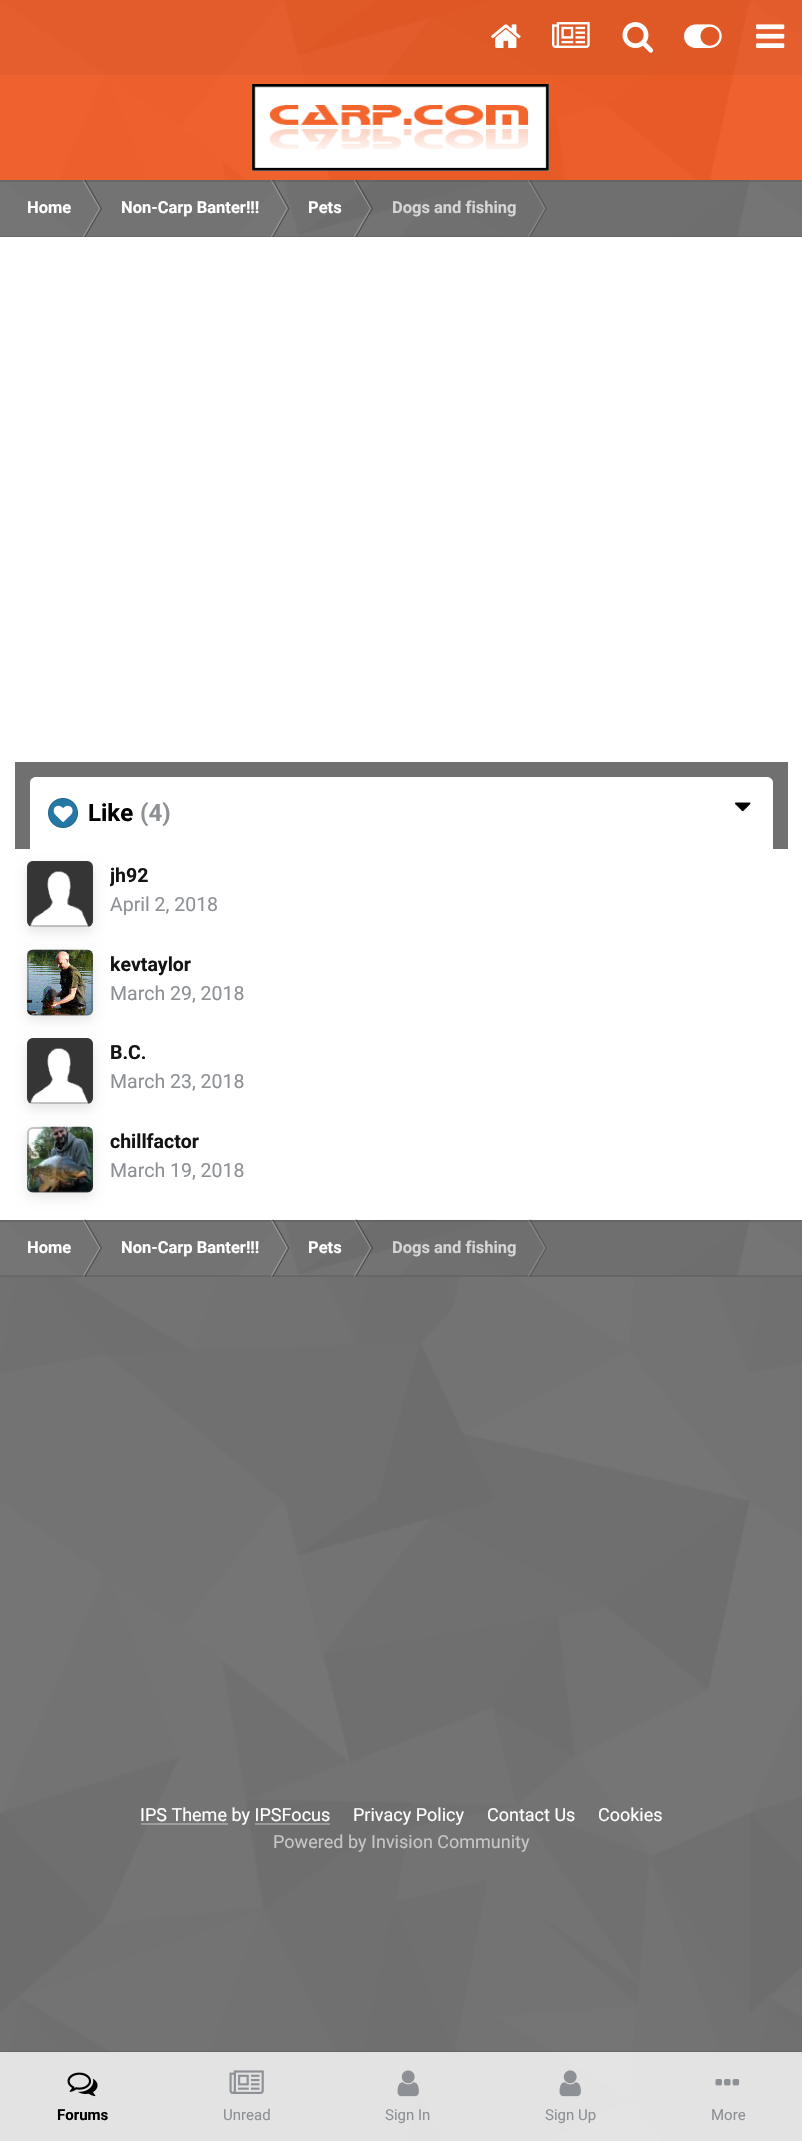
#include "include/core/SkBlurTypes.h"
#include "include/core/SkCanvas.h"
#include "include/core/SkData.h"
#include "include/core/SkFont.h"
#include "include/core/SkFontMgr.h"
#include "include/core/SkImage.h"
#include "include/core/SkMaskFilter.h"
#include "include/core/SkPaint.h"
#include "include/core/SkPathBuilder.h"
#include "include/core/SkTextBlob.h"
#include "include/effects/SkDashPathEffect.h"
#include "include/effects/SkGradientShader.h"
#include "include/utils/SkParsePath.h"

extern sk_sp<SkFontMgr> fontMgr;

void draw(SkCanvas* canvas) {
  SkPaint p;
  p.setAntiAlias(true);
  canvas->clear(SkColorSetRGB(112, 112, 112));
  canvas->drawImageRect(SkImages::DeferredFromEncodedData(SkData::MakeFromFileName("images/1.png")), SkRect::MakeLTRB(0, 1277, 802, 2141), SkSamplingOptions());
  p.setColor(SK_ColorWHITE);
  canvas->drawRect(SkRect::MakeLTRB(0, 237, 802, 1220), p);
  p.setColor(SkColorSetRGB(241, 91, 37));
  canvas->drawRect(SkRect::MakeLTRB(0, 0, 802, 180), p);
  canvas->drawImageRect(SkImages::DeferredFromEncodedData(SkData::MakeFromFileName("images/2.png")), SkRect::MakeLTRB(0, 0, 802, 180), SkSamplingOptions());
  p.setColor(SkColorSetARGB(10, 0, 0, 0));
  canvas->drawRect(SkRect::MakeLTRB(0, 0, 802, 75), p);
  canvas->drawImageRect(SkImages::DeferredFromEncodedData(SkData::MakeFromFileName("images/3.png")), SkRect::MakeLTRB(491, 24, 521, 48), SkSamplingOptions());
  canvas->drawImageRect(SkImages::DeferredFromEncodedData(SkData::MakeFromFileName("images/4.png")), SkRect::MakeLTRB(552, 22, 590, 48), SkSamplingOptions());
  canvas->drawImageRect(SkImages::DeferredFromEncodedData(SkData::MakeFromFileName("images/5.png")), SkRect::MakeLTRB(622, 22, 654, 53), SkSamplingOptions());
  canvas->drawImageRect(SkImages::DeferredFromEncodedData(SkData::MakeFromFileName("images/6.png")), SkRect::MakeLTRB(684, 24, 722, 48), SkSamplingOptions());
  canvas->drawImageRect(SkImages::DeferredFromEncodedData(SkData::MakeFromFileName("images/7.png")), SkRect::MakeLTRB(756, 24, 785, 48), SkSamplingOptions());
  canvas->drawImageRect(SkImages::DeferredFromEncodedData(SkData::MakeFromFileName("images/8.png")), SkRect::MakeLTRB(252, 84, 549, 171), SkSamplingOptions());
  canvas->drawImageRect(SkImages::DeferredFromEncodedData(SkData::MakeFromFileName("images/9.png")), SkRect::MakeLTRB(0, 180, 802, 237), SkSamplingOptions());
  p.setColor(SkColorSetRGB(150, 150, 150));
  canvas->drawPath(SkPathBuilder().moveTo(82.5f, 180).lineTo(84, 180).lineTo(100.5f, 208.5f).lineTo(99, 208.5f).close().detach(), p);
  p.setColor(SkColorSetARGB(77, 0, 0, 0));
  canvas->drawPath(SkPathBuilder().moveTo(84, 180).lineTo(85.5f, 180).lineTo(102, 208.5f).lineTo(100.5f, 208.5f).close().detach(), p);
  p.setColor(SkColorSetRGB(151, 151, 151));
  canvas->drawPath(SkPathBuilder().moveTo(270.5f, 180).lineTo(272, 180).lineTo(288, 208.5f).lineTo(286.5f, 208.5f).close().detach(), p);
  p.setColor(SkColorSetARGB(77, 0, 0, 0));
  canvas->drawPath(SkPathBuilder().moveTo(272, 180).lineTo(273.5f, 180).lineTo(289.5f, 208.5f).lineTo(288, 208.5f).close().detach(), p);
  p.setColor(SkColorSetARGB(64, 255, 255, 255));
  canvas->drawPath(SkPathBuilder().moveTo(353.5f, 180).lineTo(355, 180).lineTo(371.5f, 208.5f).lineTo(370, 208.5f).close().detach(), p);
  p.setColor(SkColorSetARGB(77, 0, 0, 0));
  canvas->drawPath(SkPathBuilder().moveTo(355, 180).lineTo(356.5f, 180).lineTo(373, 208.5f).lineTo(371.5f, 208.5f).close().detach(), p);
  p.setColor(SkColorSetRGB(136, 136, 136));
  canvas->drawPath(SkPathBuilder().moveTo(527.5f, 180).lineTo(529, 180).lineTo(545.5f, 208.5f).lineTo(544, 208.5f).close().detach(), p);
  p.setColor(SkColorSetARGB(77, 33, 33, 33));
  canvas->drawPath(SkPathBuilder().moveTo(529, 180).lineTo(530.5f, 180).lineTo(547, 208.5f).lineTo(545.5f, 208.5f).close().detach(), p);
  p.setColor(SkColorSetARGB(51, 58, 61, 64));
  canvas->drawRect(SkRect::MakeLTRB(0, 180, 802, 182), p);
  p.setColor(SkColorSetRGB(150, 150, 150));
  canvas->drawPath(SkPathBuilder().moveTo(82.5f, 237).lineTo(84, 237).lineTo(100.5f, 208.5f).lineTo(99, 208.5f).close().detach(), p);
  p.setColor(SkColorSetARGB(77, 0, 0, 0));
  canvas->drawPath(SkPathBuilder().moveTo(84, 237).lineTo(85.5f, 237).lineTo(102, 208.5f).lineTo(100.5f, 208.5f).close().detach(), p);
  p.setColor(SkColorSetRGB(152, 152, 152));
  canvas->drawPath(SkPathBuilder().moveTo(270.5f, 237).lineTo(272, 237).lineTo(288, 208.5f).lineTo(286.5f, 208.5f).close().detach(), p);
  p.setColor(SkColorSetARGB(77, 0, 0, 0));
  canvas->drawPath(SkPathBuilder().moveTo(272, 237).lineTo(273.5f, 237).lineTo(289.5f, 208.5f).lineTo(288, 208.5f).close().detach(), p);
  p.setColor(SkColorSetARGB(64, 255, 255, 255));
  canvas->drawPath(SkPathBuilder().moveTo(353.5f, 237).lineTo(355, 237).lineTo(371.5f, 208.5f).lineTo(370, 208.5f).close().detach(), p);
  p.setColor(SkColorSetARGB(77, 0, 0, 0));
  canvas->drawPath(SkPathBuilder().moveTo(355, 237).lineTo(356.5f, 237).lineTo(373, 208.5f).lineTo(371.5f, 208.5f).close().detach(), p);
  p.setColor(SkColorSetRGB(136, 136, 136));
  canvas->drawPath(SkPathBuilder().moveTo(527.5f, 237).lineTo(529, 237).lineTo(545.5f, 208.5f).lineTo(544, 208.5f).close().detach(), p);
  p.setColor(SkColorSetARGB(77, 33, 33, 33));
  canvas->drawPath(SkPathBuilder().moveTo(529, 237).lineTo(530.5f, 237).lineTo(547, 208.5f).lineTo(545.5f, 208.5f).close().detach(), p);
  p.setColor(SkColorSetARGB(51, 58, 61, 64));
  canvas->drawRect(SkRect::MakeLTRB(0, 236, 802, 237), p);
  p.setColor(SkColorSetRGB(112, 112, 112));
  canvas->drawRect(SkRect::MakeLTRB(15, 762, 788, 849), p);
  p.setColor(SK_ColorWHITE);
  canvas->drawPath(SkPathBuilder().moveTo(36, 777).lineTo(767, 777).cubicTo(770.5f, 777, 773, 779.5f, 773, 783).lineTo(773, 849).lineTo(30, 849).lineTo(30, 783).cubicTo(30, 779.5f, 32.5f, 777, 36, 777).close().detach(), p);
  canvas->drawImageRect(SkImages::DeferredFromEncodedData(SkData::MakeFromFileName("images/10.png")), SkRect::MakeLTRB(48, 798, 78, 828), SkSamplingOptions());
  canvas->drawImageRect(SkImages::DeferredFromEncodedData(SkData::MakeFromFileName("images/11.png")), SkRect::MakeLTRB(735, 802, 751, 812), SkSamplingOptions());
  canvas->drawImageRect(SkImages::DeferredFromEncodedData(SkData::MakeFromFileName("images/12.png")), SkRect::MakeLTRB(27, 861, 93, 927), SkSamplingOptions());
  canvas->save();
  canvas->clipPath(SkPathBuilder(SkPathFillType::kEvenOdd).moveTo(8, 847).lineTo(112, 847).lineTo(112, 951).lineTo(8, 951).close().moveTo(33, 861).lineTo(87, 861).cubicTo(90.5f, 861, 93, 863.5f, 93, 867).lineTo(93, 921).cubicTo(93, 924.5f, 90.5f, 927, 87, 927).lineTo(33, 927).cubicTo(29.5f, 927, 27, 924.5f, 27, 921).lineTo(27, 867).cubicTo(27, 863.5f, 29.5f, 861, 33, 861).close().detach(), true);
  p.setColor(SkColorSetARGB(26, 0, 0, 0));
  p.setMaskFilter(SkMaskFilter::MakeBlur(kNormal_SkBlurStyle, 6));
  canvas->drawRoundRect(SkRect::MakeLTRB(27, 866, 93, 932), 6, 6, p);
  p.setMaskFilter(nullptr);
  canvas->restore();
  p.setStyle(SkPaint::kStroke_Style);
  p.setStrokeWidth(2);
  p.setColor(SkColorSetARGB(77, 58, 61, 64));
  canvas->drawRoundRect(SkRect::MakeLTRB(28, 862, 92, 926), 5, 5, p);
  canvas->drawImageRect(SkImages::DeferredFromEncodedData(SkData::MakeFromFileName("images/13.png")), SkRect::MakeLTRB(27, 949, 93, 1016), SkSamplingOptions());
  canvas->save();
  canvas->clipPath(SkPathBuilder(SkPathFillType::kEvenOdd).moveTo(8, 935).lineTo(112, 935).lineTo(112, 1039).lineTo(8, 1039).close().moveTo(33, 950).lineTo(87, 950).cubicTo(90.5f, 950, 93, 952.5f, 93, 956).lineTo(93, 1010).cubicTo(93, 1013.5f, 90.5f, 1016, 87, 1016).lineTo(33, 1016).cubicTo(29.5f, 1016, 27, 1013.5f, 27, 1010).lineTo(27, 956).cubicTo(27, 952.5f, 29.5f, 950, 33, 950).close().detach(), true);
  p.setStyle(SkPaint::kFill_Style);
  p.setColor(SkColorSetARGB(26, 0, 0, 0));
  p.setMaskFilter(SkMaskFilter::MakeBlur(kNormal_SkBlurStyle, 6));
  canvas->drawRoundRect(SkRect::MakeLTRB(27, 954, 93, 1020), 6, 6, p);
  p.setMaskFilter(nullptr);
  canvas->restore();
  p.setStyle(SkPaint::kStroke_Style);
  p.setColor(SkColorSetARGB(77, 58, 61, 64));
  canvas->drawRoundRect(SkRect::MakeLTRB(28, 951, 92, 1015), 5, 5, p);
  canvas->drawImageRect(SkImages::DeferredFromEncodedData(SkData::MakeFromFileName("images/12.png")), SkRect::MakeLTRB(27, 1038, 93, 1104), SkSamplingOptions());
  canvas->save();
  canvas->clipPath(SkPathBuilder(SkPathFillType::kEvenOdd).moveTo(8, 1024).lineTo(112, 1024).lineTo(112, 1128).lineTo(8, 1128).close().moveTo(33, 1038).lineTo(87, 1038).cubicTo(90.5f, 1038, 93, 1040.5f, 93, 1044).lineTo(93, 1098).cubicTo(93, 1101.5f, 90.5f, 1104, 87, 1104).lineTo(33, 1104).cubicTo(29.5f, 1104, 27, 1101.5f, 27, 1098).lineTo(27, 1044).cubicTo(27, 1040.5f, 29.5f, 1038, 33, 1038).close().detach(), true);
  p.setStyle(SkPaint::kFill_Style);
  p.setColor(SkColorSetARGB(26, 0, 0, 0));
  p.setMaskFilter(SkMaskFilter::MakeBlur(kNormal_SkBlurStyle, 6));
  canvas->drawRoundRect(SkRect::MakeLTRB(27, 1043, 93, 1109), 6, 6, p);
  p.setMaskFilter(nullptr);
  canvas->restore();
  p.setStyle(SkPaint::kStroke_Style);
  p.setColor(SkColorSetARGB(77, 58, 61, 64));
  canvas->drawRoundRect(SkRect::MakeLTRB(28, 1039, 92, 1103), 5, 5, p);
  canvas->drawImageRect(SkImages::DeferredFromEncodedData(SkData::MakeFromFileName("images/14.png")), SkRect::MakeLTRB(27, 1126, 93, 1193), SkSamplingOptions());
  canvas->save();
  canvas->clipPath(SkPathBuilder(SkPathFillType::kEvenOdd).moveTo(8, 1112).lineTo(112, 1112).lineTo(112, 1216).lineTo(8, 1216).close().moveTo(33, 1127).lineTo(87, 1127).cubicTo(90.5f, 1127, 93, 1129.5f, 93, 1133).lineTo(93, 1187).cubicTo(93, 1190.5f, 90.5f, 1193, 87, 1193).lineTo(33, 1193).cubicTo(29.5f, 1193, 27, 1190.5f, 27, 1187).lineTo(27, 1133).cubicTo(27, 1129.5f, 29.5f, 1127, 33, 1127).close().detach(), true);
  p.setStyle(SkPaint::kFill_Style);
  p.setColor(SkColorSetARGB(26, 0, 0, 0));
  p.setMaskFilter(SkMaskFilter::MakeBlur(kNormal_SkBlurStyle, 6));
  canvas->drawRoundRect(SkRect::MakeLTRB(27, 1131, 93, 1197), 6, 6, p);
  p.setMaskFilter(nullptr);
  canvas->restore();
  p.setStyle(SkPaint::kStroke_Style);
  p.setColor(SkColorSetARGB(77, 58, 61, 64));
  canvas->drawRoundRect(SkRect::MakeLTRB(28, 1128, 92, 1192), 5, 5, p);
  canvas->drawImageRect(SkImages::DeferredFromEncodedData(SkData::MakeFromFileName("images/15.png")), SkRect::MakeLTRB(0, 1219, 802, 1276), SkSamplingOptions());
  canvas->save();
  canvas->clipRect(SkRect::MakeLTRB(0, 1220, 770, 1277));
  p.setStyle(SkPaint::kFill_Style);
  p.setColor(SkColorSetRGB(150, 150, 150));
  canvas->drawPath(SkPathBuilder().moveTo(82.5f, 1219.5f).lineTo(84, 1219.5f).lineTo(100.5f, 1248).lineTo(99, 1248).close().detach(), p);
  canvas->restore();
  p.setColor(SkColorSetARGB(77, 0, 0, 0));
  canvas->drawPath(SkPathBuilder().moveTo(84, 1219.5f).lineTo(85.5f, 1219.5f).lineTo(102, 1248).lineTo(100.5f, 1248).close().detach(), p);
  canvas->save();
  canvas->clipRect(SkRect::MakeLTRB(0, 1220, 770, 1277));
  p.setColor(SkColorSetRGB(151, 151, 151));
  canvas->drawPath(SkPathBuilder().moveTo(270.5f, 1219.5f).lineTo(272, 1219.5f).lineTo(288, 1248).lineTo(286.5f, 1248).close().detach(), p);
  canvas->restore();
  p.setColor(SkColorSetARGB(77, 0, 0, 0));
  canvas->drawPath(SkPathBuilder().moveTo(272, 1219.5f).lineTo(273.5f, 1219.5f).lineTo(289.5f, 1248).lineTo(288, 1248).close().detach(), p);
  p.setColor(SkColorSetARGB(64, 255, 255, 255));
  canvas->drawPath(SkPathBuilder().moveTo(353.5f, 1219.5f).lineTo(355, 1219.5f).lineTo(371.5f, 1248).lineTo(370, 1248).close().detach(), p);
  p.setColor(SkColorSetARGB(77, 0, 0, 0));
  canvas->drawPath(SkPathBuilder().moveTo(355, 1219.5f).lineTo(356.5f, 1219.5f).lineTo(373, 1248).lineTo(371.5f, 1248).close().detach(), p);
  canvas->save();
  canvas->clipRect(SkRect::MakeLTRB(0, 1220, 770, 1277));
  p.setColor(SkColorSetRGB(136, 136, 136));
  canvas->drawPath(SkPathBuilder().moveTo(527.5f, 1219.5f).lineTo(529, 1219.5f).lineTo(545.5f, 1248).lineTo(544, 1248).close().detach(), p);
  canvas->restore();
  p.setColor(SkColorSetARGB(77, 33, 33, 33));
  canvas->drawPath(SkPathBuilder().moveTo(529, 1219.5f).lineTo(530.5f, 1219.5f).lineTo(547, 1248).lineTo(545.5f, 1248).close().detach(), p);
  p.setColor(SkColorSetARGB(51, 58, 61, 64));
  canvas->drawRect(SkRect::MakeLTRB(0, 1220, 802, 1222), p);
  p.setColor(SkColorSetARGB(64, 255, 255, 255));
  canvas->drawPath(SkPathBuilder().moveTo(82.5f, 1276.5f).lineTo(84, 1276.5f).lineTo(100.5f, 1248).lineTo(99, 1248).close().detach(), p);
  p.setColor(SkColorSetARGB(77, 0, 0, 0));
  canvas->drawPath(SkPathBuilder().moveTo(84, 1276.5f).lineTo(85.5f, 1276.5f).lineTo(102, 1248).lineTo(100.5f, 1248).close().detach(), p);
  p.setColor(SkColorSetARGB(64, 255, 255, 255));
  canvas->drawPath(SkPathBuilder().moveTo(270.5f, 1276.5f).lineTo(272, 1276.5f).lineTo(288, 1248).lineTo(286.5f, 1248).close().detach(), p);
  p.setColor(SkColorSetARGB(77, 0, 0, 0));
  canvas->drawPath(SkPathBuilder().moveTo(272, 1276.5f).lineTo(273.5f, 1276.5f).lineTo(289.5f, 1248).lineTo(288, 1248).close().detach(), p);
  p.setColor(SkColorSetARGB(64, 255, 255, 255));
  canvas->drawPath(SkPathBuilder().moveTo(353.5f, 1276.5f).lineTo(355, 1276.5f).lineTo(371.5f, 1248).lineTo(370, 1248).close().detach(), p);
  p.setColor(SkColorSetARGB(77, 0, 0, 0));
  canvas->drawPath(SkPathBuilder().moveTo(355, 1276.5f).lineTo(356.5f, 1276.5f).lineTo(373, 1248).lineTo(371.5f, 1248).close().detach(), p);
  p.setColor(SkColorSetRGB(136, 136, 136));
  canvas->drawPath(SkPathBuilder().moveTo(527.5f, 1276.5f).lineTo(529, 1276.5f).lineTo(545.5f, 1248).lineTo(544, 1248).close().detach(), p);
  p.setColor(SkColorSetARGB(77, 33, 33, 33));
  canvas->drawPath(SkPathBuilder().moveTo(529, 1276.5f).lineTo(530.5f, 1276.5f).lineTo(547, 1248).lineTo(545.5f, 1248).close().detach(), p);
  p.setColor(SkColorSetARGB(51, 58, 61, 64));
  canvas->drawRect(SkRect::MakeLTRB(0, 1275, 802, 1277), p);
  p.setColor(SkColorSetARGB(77, 255, 255, 255));
  canvas->drawRect(SkRect::MakeLTRB(141, 1823, 228, 1825), p);
  p.setColor(SkColorSetARGB(26, 0, 0, 0));
  canvas->drawPath(SkPathBuilder().moveTo(0, 2051).lineTo(0, 2052).lineTo(802, 2052).lineTo(802, 2141).lineTo(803, 2141).lineTo(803, 2051).close().detach(), p);
  p.setColor(SkColorSetARGB(204, 255, 255, 255));
  canvas->drawRect(SkRect::MakeLTRB(0, 2052, 802, 2141), p);
  canvas->drawImageRect(SkImages::DeferredFromEncodedData(SkData::MakeFromFileName("images/16.png")), SkRect::MakeLTRB(67, 2072, 98, 2097), SkSamplingOptions());
  canvas->drawImageRect(SkImages::DeferredFromEncodedData(SkData::MakeFromFileName("images/17.png")), SkRect::MakeLTRB(229, 2070, 264, 2094), SkSamplingOptions());
  canvas->drawImageRect(SkImages::DeferredFromEncodedData(SkData::MakeFromFileName("images/18.png")), SkRect::MakeLTRB(397, 2070, 419, 2097), SkSamplingOptions());
  canvas->drawImageRect(SkImages::DeferredFromEncodedData(SkData::MakeFromFileName("images/19.png")), SkRect::MakeLTRB(559, 2070, 581, 2097), SkSamplingOptions());
  canvas->drawImageRect(SkImages::DeferredFromEncodedData(SkData::MakeFromFileName("images/20.png")), SkRect::MakeLTRB(715, 2079, 740, 2086), SkSamplingOptions());
  SkFont font1(fontMgr->matchFamilyStyle("Roboto", SkFontStyle::Bold()), 16.5f);
  font1.setSubpixel(true);
  p.setColor(SK_ColorWHITE);
  canvas->drawString("Home", 27, 213, font1, p);
  canvas->drawString("Non-Carp Banter!!!", 121, 213, font1, p);
  canvas->drawString("Pets", 308, 213, font1, p);
  p.setColor(SkColorSetRGB(212, 212, 212));
  canvas->drawString("Dogs and fishing", 392, 213, font1, p);
  SkFont font2(fontMgr->matchFamilyStyle("Roboto", SkFontStyle::Bold()), 24);
  font2.setSubpixel(true);
  p.setColor(SK_ColorBLACK);
  canvas->drawString("Like", 88, 821, font2, p);
  p.setColor(SkColorSetRGB(141, 144, 148));
  canvas->drawString("(4)", 140, 821, font2, p);
  canvas->save();
  canvas->clipRect(SkRect::MakeLTRB(110, 861, 776, 891));
  SkFont font3(fontMgr->matchFamilyStyle("Roboto", SkFontStyle::Bold()), 19.5f);
  font3.setSubpixel(true);
  p.setColor(SkColorSetRGB(20, 20, 20));
  canvas->drawString("jh92", 110, 882, font3, p);
  canvas->restore();
  SkFont font4(fontMgr->matchFamilyStyle("Roboto", SkFontStyle::Normal()), 19.5f);
  font4.setSubpixel(true);
  p.setColor(SkColorSetRGB(141, 144, 148));
  canvas->drawString("April 2, 2018", 110, 911, font4, p);
  p.setColor(SkColorSetRGB(20, 20, 20));
  canvas->drawString("kevtaylor", 110, 971, font3, p);
  p.setColor(SkColorSetRGB(141, 144, 148));
  canvas->drawString("March 29, 2018", 110, 1000, font4, p);
  p.setColor(SkColorSetRGB(20, 20, 20));
  canvas->drawString("B.C.", 110, 1059, font3, p);
  p.setColor(SkColorSetRGB(141, 144, 148));
  canvas->drawString("March 23, 2018", 110, 1088, font4, p);
  p.setColor(SkColorSetRGB(20, 20, 20));
  canvas->drawString("chillfactor", 110, 1148, font3, p);
  p.setColor(SkColorSetRGB(141, 144, 148));
  canvas->drawString("March 19, 2018", 110, 1177, font4, p);
  p.setColor(SK_ColorWHITE);
  canvas->drawString("Home", 27, 1253, font1, p);
  canvas->drawString("Non-Carp Banter!!!", 121, 1253, font1, p);
  canvas->drawString("Pets", 308, 1253, font1, p);
  p.setColor(SkColorSetRGB(212, 212, 212));
  canvas->drawString("Dogs and fishing", 392, 1253, font1, p);
  SkFont font5(fontMgr->matchFamilyStyle("Roboto", SkFontStyle::Normal()), 18);
  font5.setSubpixel(true);
  p.setColor(SK_ColorWHITE);
  canvas->drawString("IPS Theme by IPSFocus", 140, 1821, font5, p);
  p.setColor(SkColorSetRGB(154, 154, 154));
  canvas->drawRect(SkRect::MakeLTRB(255, 1823, 330, 1825), p);
  p.setColor(SK_ColorWHITE);
  canvas->drawString("Privacy Policy", 353, 1821, font5, p);
  canvas->drawString("Contact Us", 487, 1821, font5, p);
  canvas->drawString("Cookies", 598, 1821, font5, p);
  p.setColor(SkColorSetRGB(198, 198, 198));
  canvas->drawString("Powered by Invision Community", 273, 1848, font5, p);
  SkFont font6(fontMgr->matchFamilyStyle("Roboto", SkFontStyle::Bold()), 15);
  font6.setSubpixel(true);
  p.setColor(SK_ColorBLACK);
  canvas->drawString("Forums", 57, 2120, font6, p);
  SkFont font7(fontMgr->matchFamilyStyle("Roboto", SkFontStyle::Normal()), 15);
  font7.setSubpixel(true);
  p.setColor(SkColorSetRGB(141, 144, 148));
  canvas->drawString("Unread", 223, 2120, font7, p);
  canvas->drawString("Sign In", 385, 2120, font7, p);
  canvas->drawString("Sign Up", 545, 2120, font7, p);
  canvas->drawString("More", 711, 2120, font7, p);
}
